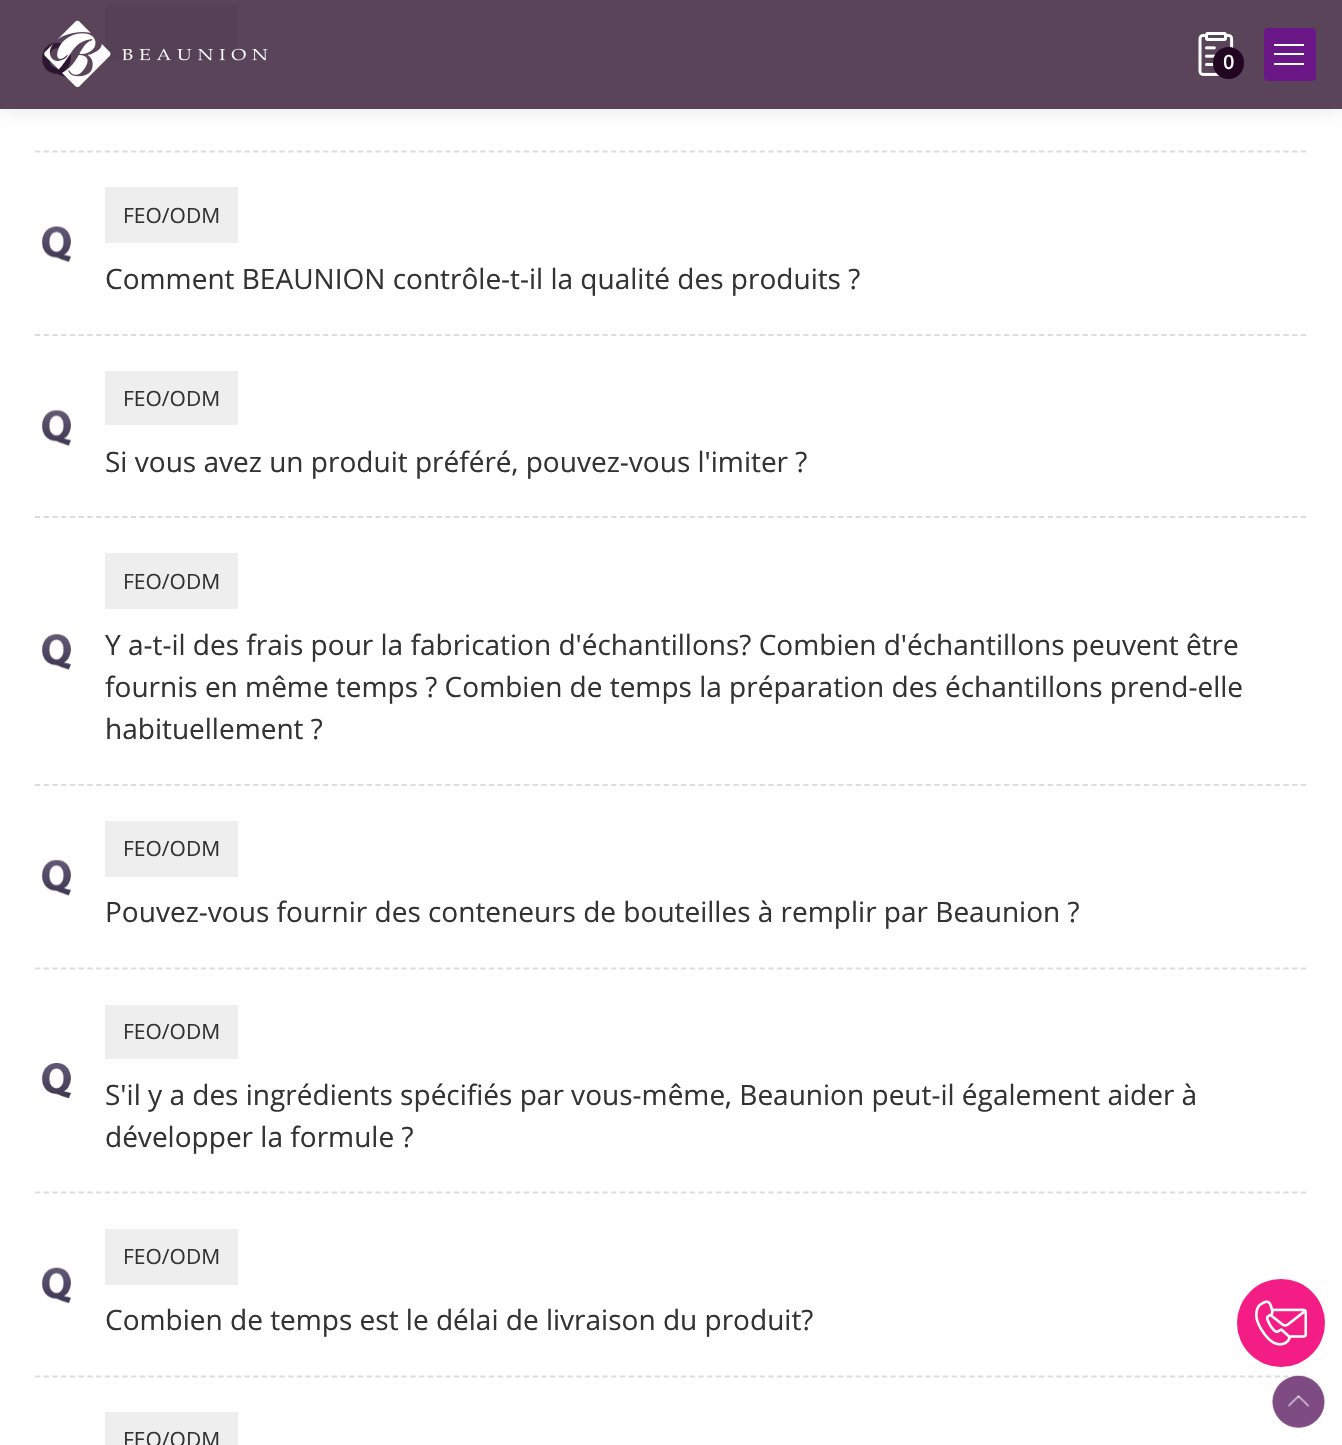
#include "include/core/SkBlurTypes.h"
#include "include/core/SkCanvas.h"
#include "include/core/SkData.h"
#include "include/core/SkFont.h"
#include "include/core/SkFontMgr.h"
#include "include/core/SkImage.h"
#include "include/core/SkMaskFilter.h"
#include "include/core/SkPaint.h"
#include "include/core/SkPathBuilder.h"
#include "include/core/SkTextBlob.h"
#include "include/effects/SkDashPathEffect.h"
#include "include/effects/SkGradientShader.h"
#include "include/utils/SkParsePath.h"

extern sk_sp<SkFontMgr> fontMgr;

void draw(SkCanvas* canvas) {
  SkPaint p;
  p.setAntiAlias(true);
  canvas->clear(SK_ColorWHITE);
  canvas->drawImageRect(SkImages::DeferredFromEncodedData(SkData::MakeFromFileName("images/3.png")), SkRect::MakeLTRB(41, 42, 71, 79), SkSamplingOptions());
  p.setColor(SkColorSetRGB(238, 238, 238));
  canvas->drawRect(SkRect::MakeLTRB(105, 5, 238, 60), p);
  canvas->save();
  canvas->clipPath(SkPathBuilder(SkPathFillType::kEvenOdd).moveTo(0, 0).lineTo(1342, 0).lineTo(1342, 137).lineTo(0, 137).close().moveTo(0, 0).lineTo(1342, 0).lineTo(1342, 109).lineTo(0, 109).close().detach(), true);
  p.setColor(SkColorSetARGB(26, 0, 0, 0));
  p.setMaskFilter(SkMaskFilter::MakeBlur(kNormal_SkBlurStyle, 9));
  canvas->drawRect(SkRect::MakeLTRB(0, 0, 1342, 109), p);
  p.setMaskFilter(nullptr);
  canvas->restore();
  p.setColor(SkColorSetARGB(191, 33, 5, 33));
  canvas->drawRect(SkRect::MakeLTRB(0, 0, 1342, 109), p);
  canvas->drawImageRect(SkImages::DeferredFromEncodedData(SkData::MakeFromFileName("images/1.png")), SkRect::MakeLTRB(44, 20, 268, 88), SkSamplingOptions());
  canvas->drawImageRect(SkImages::DeferredFromEncodedData(SkData::MakeFromFileName("images/2.png")), SkRect::MakeLTRB(1198, 32, 1234, 76), SkSamplingOptions());
  p.setColor(SkColorSetRGB(33, 5, 33));
  canvas->drawRoundRect(SkRect::MakeLTRB(1213, 47, 1244, 79), 15.5f, 15.5f, p);
  p.setColor(SkColorSetRGB(107, 22, 134));
  canvas->drawRoundRect(SkRect::MakeLTRB(1264, 28, 1316, 81), 4, 4, p);
  p.setColor(SK_ColorWHITE);
  canvas->drawRect(SkRect::MakeLTRB(1274, 44, 1304, 46), p);
  canvas->drawRect(SkRect::MakeLTRB(1274, 53, 1304, 55), p);
  canvas->drawRect(SkRect::MakeLTRB(1274, 63, 1304, 65), p);
  p.setStyle(SkPaint::kStroke_Style);
  p.setStrokeWidth(1.8f);
  p.setColor(SkColorSetRGB(221, 221, 221));
  p.setPathEffect(SkDashPathEffect::Make({{5.25f, 3.48f}}, 0));
  canvas->drawPath(SkPathBuilder().moveTo(35, 151.5f).lineTo(1307, 151.5f).detach(), p);
  p.setPathEffect(nullptr);
  p.setPathEffect(SkDashPathEffect::Make({{5.25f, 3.48f}}, 0));
  canvas->drawPath(SkPathBuilder().moveTo(35, 335).lineTo(1307, 335).detach(), p);
  p.setPathEffect(nullptr);
  p.setStyle(SkPaint::kFill_Style);
  p.setColor(SkColorSetRGB(238, 238, 238));
  canvas->drawRect(SkRect::MakeLTRB(105, 187, 238, 243), p);
  canvas->drawImageRect(SkImages::DeferredFromEncodedData(SkData::MakeFromFileName("images/4.png")), SkRect::MakeLTRB(41, 226, 71, 263), SkSamplingOptions());
  p.setStyle(SkPaint::kStroke_Style);
  p.setColor(SkColorSetRGB(221, 221, 221));
  p.setPathEffect(SkDashPathEffect::Make({{5.25f, 3.48f}}, 0));
  canvas->drawPath(SkPathBuilder().moveTo(35, 517).lineTo(1307, 517).detach(), p);
  p.setPathEffect(nullptr);
  p.setStyle(SkPaint::kFill_Style);
  p.setColor(SkColorSetRGB(238, 238, 238));
  canvas->drawRect(SkRect::MakeLTRB(105, 371, 238, 425), p);
  canvas->drawImageRect(SkImages::DeferredFromEncodedData(SkData::MakeFromFileName("images/5.png")), SkRect::MakeLTRB(41, 409, 71, 447), SkSamplingOptions());
  p.setStyle(SkPaint::kStroke_Style);
  p.setColor(SkColorSetRGB(221, 221, 221));
  p.setPathEffect(SkDashPathEffect::Make({{5.25f, 3.48f}}, 0));
  canvas->drawPath(SkPathBuilder().moveTo(35, 785).lineTo(1307, 785).detach(), p);
  p.setPathEffect(nullptr);
  p.setStyle(SkPaint::kFill_Style);
  p.setColor(SkColorSetRGB(238, 238, 238));
  canvas->drawRect(SkRect::MakeLTRB(105, 553, 238, 609), p);
  canvas->drawImageRect(SkImages::DeferredFromEncodedData(SkData::MakeFromFileName("images/6.png")), SkRect::MakeLTRB(41, 634, 71, 671), SkSamplingOptions());
  p.setStyle(SkPaint::kStroke_Style);
  p.setColor(SkColorSetRGB(221, 221, 221));
  p.setPathEffect(SkDashPathEffect::Make({{5.25f, 3.48f}}, 0));
  canvas->drawPath(SkPathBuilder().moveTo(35, 968.5f).lineTo(1307, 968.5f).detach(), p);
  p.setPathEffect(nullptr);
  p.setStyle(SkPaint::kFill_Style);
  p.setColor(SkColorSetRGB(238, 238, 238));
  canvas->drawRect(SkRect::MakeLTRB(105, 821, 238, 877), p);
  canvas->drawImageRect(SkImages::DeferredFromEncodedData(SkData::MakeFromFileName("images/7.png")), SkRect::MakeLTRB(41, 859, 71, 896), SkSamplingOptions());
  p.setStyle(SkPaint::kStroke_Style);
  p.setColor(SkColorSetRGB(221, 221, 221));
  p.setPathEffect(SkDashPathEffect::Make({{5.25f, 3.48f}}, 0));
  canvas->drawPath(SkPathBuilder().moveTo(35, 1192.5f).lineTo(1307, 1192.5f).detach(), p);
  p.setPathEffect(nullptr);
  p.setStyle(SkPaint::kFill_Style);
  p.setColor(SkColorSetRGB(238, 238, 238));
  canvas->drawRect(SkRect::MakeLTRB(105, 1005, 238, 1059), p);
  canvas->drawImageRect(SkImages::DeferredFromEncodedData(SkData::MakeFromFileName("images/8.png")), SkRect::MakeLTRB(41, 1063, 71, 1099), SkSamplingOptions());
  p.setStyle(SkPaint::kStroke_Style);
  p.setColor(SkColorSetRGB(221, 221, 221));
  p.setPathEffect(SkDashPathEffect::Make({{5.25f, 3.48f}}, 0));
  canvas->drawPath(SkPathBuilder().moveTo(35, 1376.5f).lineTo(1307, 1376.5f).detach(), p);
  p.setPathEffect(nullptr);
  p.setStyle(SkPaint::kFill_Style);
  p.setColor(SkColorSetRGB(238, 238, 238));
  canvas->drawRect(SkRect::MakeLTRB(105, 1229, 238, 1285), p);
  canvas->drawImageRect(SkImages::DeferredFromEncodedData(SkData::MakeFromFileName("images/3.png")), SkRect::MakeLTRB(41, 1267, 71, 1304), SkSamplingOptions());
  canvas->drawRect(SkRect::MakeLTRB(105, 1412, 238, 1445), p);
  p.setColor(SkColorSetRGB(244, 29, 133));
  canvas->drawCircle(1281, 1323, 44, p);
  canvas->drawImageRect(SkImages::DeferredFromEncodedData(SkData::MakeFromFileName("images/9.png")), SkRect::MakeLTRB(1255, 1300, 1307, 1346), SkSamplingOptions());
  canvas->drawImageRect(SkImages::DeferredFromEncodedData(SkData::MakeFromFileName("images/10.png")), SkRect::MakeLTRB(1272, 1375, 1325, 1428), SkSamplingOptions());
  SkFont font1(fontMgr->matchFamilyStyle("Open Sans", SkFontStyle::Bold()), 19);
  font1.setSubpixel(true);
  p.setColor(SK_ColorWHITE);
  canvas->drawString("0", 1223, 69, font1, p);
  SkFont font2(fontMgr->matchFamilyStyle("Open Sans", SkFontStyle::Normal()), 21);
  font2.setSubpixel(true);
  p.setColor(SkColorSetRGB(51, 51, 51));
  canvas->drawString("FEO/ODM", 123, 223, font2, p);
  SkFont font3(fontMgr->matchFamilyStyle("Open Sans", SkFontStyle::Normal()), 28);
  font3.setSubpixel(true);
  canvas->drawString("Comment BEAUNION contrôle-t-il la qualité des produits ?", 105, 289, font3, p);
  canvas->drawString("FEO/ODM", 123, 406, font2, p);
  canvas->drawString("Si vous avez un produit préféré, pouvez-vous l'imiter ?", 105, 472, font3, p);
  canvas->drawString("FEO/ODM", 123, 589, font2, p);
  canvas->drawString("Y a-t-il des frais pour la fabrication d'échantillons? Combien d'échantillons peuvent être", 105, 655, font3, p);
  canvas->drawString("fournis en même temps ? Combien de temps la préparation des échantillons prend-elle", 105, 697, font3, p);
  canvas->drawString("habituellement ?", 105, 739, font3, p);
  canvas->drawString("FEO/ODM", 123, 856, font2, p);
  canvas->drawString("Pouvez-vous fournir des conteneurs de bouteilles à remplir par Beaunion ?", 105, 922, font3, p);
  canvas->drawString("FEO/ODM", 123, 1039, font2, p);
  canvas->drawString("S'il y a des ingrédients spécifiés par vous-même, Beaunion peut-il également aider à", 105, 1105, font3, p);
  canvas->drawString("développer la formule ?", 105, 1147, font3, p);
  canvas->drawString("FEO/ODM", 123, 1264, font2, p);
  canvas->drawString("Combien de temps est le délai de livraison du produit?", 105, 1330, font3, p);
  canvas->drawString("FEO/ODM", 123, 1447, font2, p);
}
